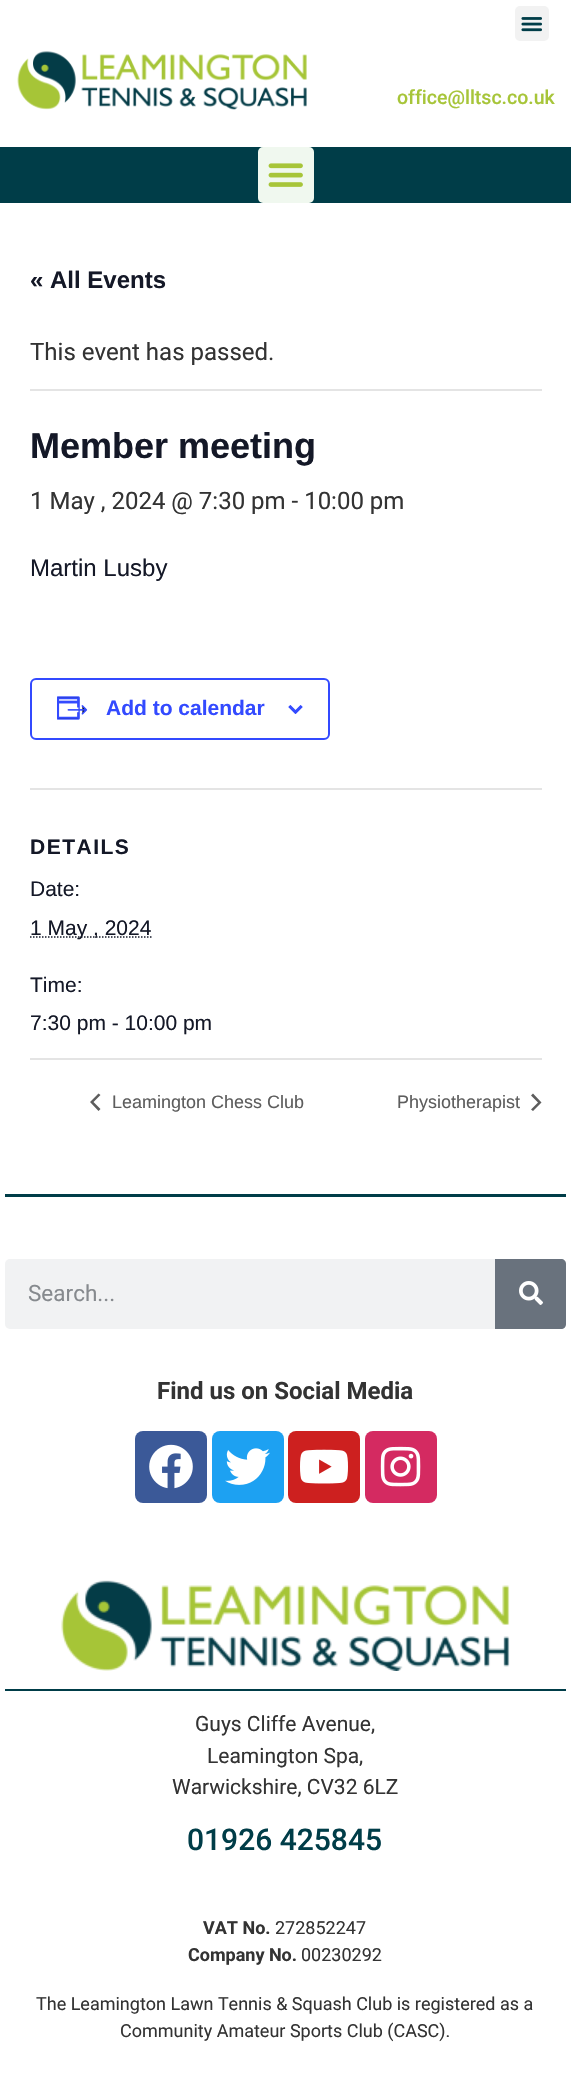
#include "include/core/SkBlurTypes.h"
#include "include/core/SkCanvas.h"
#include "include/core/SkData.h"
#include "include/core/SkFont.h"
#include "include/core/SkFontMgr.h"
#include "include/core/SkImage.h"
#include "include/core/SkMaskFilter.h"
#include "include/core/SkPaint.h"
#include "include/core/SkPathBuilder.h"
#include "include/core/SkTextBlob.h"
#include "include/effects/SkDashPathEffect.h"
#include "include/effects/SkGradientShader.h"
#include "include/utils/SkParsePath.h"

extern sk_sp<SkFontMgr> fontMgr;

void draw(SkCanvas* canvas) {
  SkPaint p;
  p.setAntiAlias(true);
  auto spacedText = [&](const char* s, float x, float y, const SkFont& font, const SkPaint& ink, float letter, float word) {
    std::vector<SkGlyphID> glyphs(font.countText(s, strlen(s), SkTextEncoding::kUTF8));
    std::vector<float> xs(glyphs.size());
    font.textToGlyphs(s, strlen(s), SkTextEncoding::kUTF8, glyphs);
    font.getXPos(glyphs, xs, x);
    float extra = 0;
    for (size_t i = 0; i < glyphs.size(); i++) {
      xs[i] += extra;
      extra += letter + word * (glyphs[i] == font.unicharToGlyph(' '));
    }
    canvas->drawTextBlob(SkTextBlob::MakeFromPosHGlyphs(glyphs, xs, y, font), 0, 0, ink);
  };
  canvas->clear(SK_ColorWHITE);
  canvas->drawImageRect(SkImages::DeferredFromEncodedData(SkData::MakeFromFileName("images/1.png")), SkRect::MakeLTRB(17, 51, 307, 110), SkSamplingOptions());
  p.setColor(SkColorSetRGB(242, 242, 242));
  canvas->drawRoundRect(SkRect::MakeLTRB(515, 6, 549, 41), 5, 5, p);
  canvas->drawImageRect(SkImages::DeferredFromEncodedData(SkData::MakeFromFileName("images/2.png")), SkRect::MakeLTRB(521, 17, 542, 32), SkSamplingOptions());
  p.setColor(SkColorSetRGB(0, 61, 72));
  canvas->drawRect(SkRect::MakeLTRB(0, 147, 571, 203), p);
  p.setColor(SkColorSetRGB(240, 248, 239));
  canvas->drawRoundRect(SkRect::MakeLTRB(258, 147, 314, 203), 5, 5, p);
  canvas->drawImageRect(SkImages::DeferredFromEncodedData(SkData::MakeFromFileName("images/3.png")), SkRect::MakeLTRB(268, 163, 303, 187), SkSamplingOptions());
  p.setColor(SkColorSetRGB(228, 228, 228));
  canvas->drawRect(SkRect::MakeLTRB(30, 389, 542, 391), p);
  p.setStyle(SkPaint::kStroke_Style);
  p.setStrokeWidth(2);
  p.setColor(SkColorSetRGB(51, 74, 255));
  canvas->drawRoundRect(SkRect::MakeLTRB(31, 679, 329, 739), 5, 5, p);
  canvas->drawImageRect(SkImages::DeferredFromEncodedData(SkData::MakeFromFileName("images/4.png")), SkRect::MakeLTRB(57, 696, 88, 720), SkSamplingOptions());
  canvas->drawImageRect(SkImages::DeferredFromEncodedData(SkData::MakeFromFileName("images/5.png")), SkRect::MakeLTRB(288, 705, 303, 714), SkSamplingOptions());
  p.setStyle(SkPaint::kFill_Style);
  p.setColor(SkColorSetRGB(228, 228, 228));
  canvas->drawRect(SkRect::MakeLTRB(30, 788, 542, 790), p);
  p.setStyle(SkPaint::kStroke_Style);
  p.setStrokeWidth(1.5f);
  p.setColor(SkColorSetRGB(20, 24, 39));
  p.setPathEffect(SkDashPathEffect::Make({{1.5f, 1.5f}}, 0));
  canvas->drawPath(SkPathBuilder().moveTo(30, 937).lineTo(151.5f, 937).detach(), p);
  p.setPathEffect(nullptr);
  p.setStyle(SkPaint::kFill_Style);
  p.setColor(SkColorSetRGB(228, 228, 228));
  canvas->drawRect(SkRect::MakeLTRB(30, 1058, 542, 1060), p);
  p.setColor(SkColorSetRGB(93, 93, 93));
  canvas->drawPath(SkPathBuilder().moveTo(100.5f, 1109).lineTo(98.5f, 1111).lineTo(90, 1102).lineTo(98.5f, 1093.5f).lineTo(100.5f, 1095).lineTo(93.5f, 1102).close().detach(), p);
  canvas->drawPath(SkPathBuilder().moveTo(531, 1095.5f).lineTo(533, 1093.5f).lineTo(541.5f, 1102.5f).lineTo(533, 1111).lineTo(531, 1109.5f).lineTo(538, 1102.5f).close().detach(), p);
  p.setColor(SkColorSetRGB(0, 61, 72));
  canvas->drawRect(SkRect::MakeLTRB(5, 1194, 566, 1197), p);
  p.setColor(SkColorSetRGB(241, 242, 243));
  canvas->drawRoundRect(SkRect::MakeLTRB(5, 1259, 566, 1329), 5, 5, p);
  p.setColor(SkColorSetRGB(105, 114, 125));
  canvas->drawPath(SkPathBuilder().moveTo(495, 1259).lineTo(561, 1259).cubicTo(564, 1259, 566, 1261, 566, 1264).lineTo(566, 1324).cubicTo(566, 1327, 564, 1329, 561, 1329).lineTo(495, 1329).close().detach(), p);
  canvas->drawImageRect(SkImages::DeferredFromEncodedData(SkData::MakeFromFileName("images/6.png")), SkRect::MakeLTRB(519, 1281, 543, 1305), SkSamplingOptions());
  p.setColor(SkColorSetRGB(59, 89, 152));
  canvas->drawRoundRect(SkRect::MakeLTRB(135, 1431, 207, 1503), 8, 8, p);
  canvas->drawImageRect(SkImages::DeferredFromEncodedData(SkData::MakeFromFileName("images/7.png")), SkRect::MakeLTRB(149, 1444, 193, 1489), SkSamplingOptions());
  p.setColor(SkColorSetRGB(29, 161, 242));
  canvas->drawRoundRect(SkRect::MakeLTRB(212, 1431, 284, 1503), 8, 8, p);
  canvas->drawImageRect(SkImages::DeferredFromEncodedData(SkData::MakeFromFileName("images/8.png")), SkRect::MakeLTRB(225, 1448, 270, 1485), SkSamplingOptions());
  p.setColor(SkColorSetRGB(205, 32, 31));
  canvas->drawRoundRect(SkRect::MakeLTRB(288, 1431, 360, 1503), 8, 8, p);
  canvas->drawImageRect(SkImages::DeferredFromEncodedData(SkData::MakeFromFileName("images/9.png")), SkRect::MakeLTRB(300, 1449, 348, 1484), SkSamplingOptions());
  p.setColor(SkColorSetRGB(212, 42, 97));
  canvas->drawRoundRect(SkRect::MakeLTRB(365, 1431, 437, 1503), 8, 8, p);
  canvas->drawImageRect(SkImages::DeferredFromEncodedData(SkData::MakeFromFileName("images/10.png")), SkRect::MakeLTRB(380, 1446, 421, 1487), SkSamplingOptions());
  canvas->drawImageRect(SkImages::DeferredFromEncodedData(SkData::MakeFromFileName("images/11.png")), SkRect::MakeLTRB(61, 1580, 510, 1671), SkSamplingOptions());
  p.setColor(SkColorSetRGB(0, 61, 72));
  canvas->drawRect(SkRect::MakeLTRB(5, 1689, 566, 1691), p);
  SkFont font1(fontMgr->matchFamilyStyle("Roboto", SkFontStyle(500, SkFontStyle::kNormal_Width, SkFontStyle::kUpright_Slant)), 19.5f);
  font1.setSubpixel(true);
  p.setColor(SkColorSetRGB(167, 197, 57));
  canvas->drawString("office@lltsc.co.uk", 397, 104, font1, p);
  SkFont font2(fontMgr->matchFamilyStyle("Liberation Sans", SkFontStyle::Bold()), 24);
  font2.setSubpixel(true);
  p.setColor(SkColorSetRGB(20, 24, 39));
  canvas->drawString("« All Events", 30, 288, font2, p);
  SkFont font3(fontMgr->matchFamilyStyle("Roboto", SkFontStyle::Normal()), 24);
  font3.setSubpixel(true);
  p.setColor(SkColorSetRGB(51, 51, 51));
  canvas->drawString("This event has passed.", 30, 360, font3, p);
  SkFont font4(fontMgr->matchFamilyStyle("Liberation Sans", SkFontStyle::Bold()), 36);
  font4.setSubpixel(true);
  p.setColor(SkColorSetRGB(20, 24, 39));
  canvas->drawString("Member meeting", 30, 458, font4, p);
  p.setColor(SkColorSetRGB(51, 51, 51));
  canvas->drawString("1 May , 2024 @ 7:30 pm - 10:00 pm", 30, 509, font3, p);
  SkFont font5(fontMgr->matchFamilyStyle("Liberation Sans", SkFontStyle::Normal()), 24);
  font5.setSubpixel(true);
  p.setColor(SkColorSetRGB(20, 24, 39));
  canvas->drawString("Martin Lusby", 30, 576, font5, p);
  SkFont font6(fontMgr->matchFamilyStyle("Liberation Sans", SkFontStyle::Bold()), 21);
  font6.setSubpixel(true);
  p.setColor(SkColorSetRGB(51, 74, 255));
  canvas->drawString("Add to calendar", 106, 715, font6, p);
  p.setColor(SkColorSetRGB(20, 24, 39));
  spacedText("DETAILS", 30, 854, font6, p, 1.5f, 0);
  SkFont font7(fontMgr->matchFamilyStyle("Liberation Sans", SkFontStyle::Normal()), 21);
  font7.setSubpixel(true);
  canvas->drawString("Date:", 30, 896, font7, p);
  canvas->drawString("1 May , 2024", 30, 935, font7, p);
  canvas->drawString("Time:", 30, 992, font7, p);
  canvas->drawString("7:30 pm - 10:00 pm", 30, 1030, font7, p);
  SkFont font8(fontMgr->matchFamilyStyle("Liberation Sans", SkFontStyle::Normal()), 18);
  font8.setSubpixel(true);
  p.setColor(SkColorSetRGB(93, 93, 93));
  canvas->drawString("Leamington Chess Club", 112, 1108, font8, p);
  canvas->drawString("Physiotherapist", 397, 1108, font8, p);
  SkFont font9(fontMgr->matchFamilyStyle("Roboto", SkFontStyle::Normal()), 22.5f);
  font9.setSubpixel(true);
  p.setColor(SkColorSetRGB(134, 138, 142));
  canvas->drawString("Search...", 28, 1301, font9, p);
  SkFont font10(fontMgr->matchFamilyStyle("Roboto", SkFontStyle::Bold()), 24);
  font10.setSubpixel(true);
  p.setColor(SkColorSetRGB(51, 51, 51));
  canvas->drawString("Find us on Social Media", 157, 1399, font10, p);
  SkFont font11(fontMgr->matchFamilyStyle("Roboto", SkFontStyle::Normal()), 21);
  font11.setSubpixel(true);
  canvas->drawString("Guys Cliffe Avenue,", 195, 1731, font11, p);
  canvas->drawString("Leamington Spa,", 207, 1763, font11, p);
  canvas->drawString("Warwickshire, CV32 6LZ", 172, 1794, font11, p);
  SkFont font12(fontMgr->matchFamilyStyle("Roboto", SkFontStyle(500, SkFontStyle::kNormal_Width, SkFontStyle::kUpright_Slant)), 30);
  font12.setSubpixel(true);
  p.setColor(SkColorSetRGB(0, 61, 72));
  canvas->drawString("01926 425845", 187, 1850, font12, p);
  SkFont font13(fontMgr->matchFamilyStyle("Roboto", SkFontStyle::Bold()), 18);
  font13.setSubpixel(true);
  p.setColor(SkColorSetRGB(51, 51, 51));
  canvas->drawString("VAT No.", 203, 1934, font13, p);
  SkFont font14(fontMgr->matchFamilyStyle("Roboto", SkFontStyle::Normal()), 18);
  font14.setSubpixel(true);
  canvas->drawString("272852247", 275, 1934, font14, p);
  canvas->drawString("Company No.", 188, 1961, font13, p);
  canvas->drawString("00230292", 301, 1961, font14, p);
  canvas->drawString("The Leamington Lawn Tennis & Squash Club is registered as a", 36, 2010, font14, p);
  canvas->drawString("Community Amateur Sports Club (CASC).", 120, 2037, font14, p);
}
